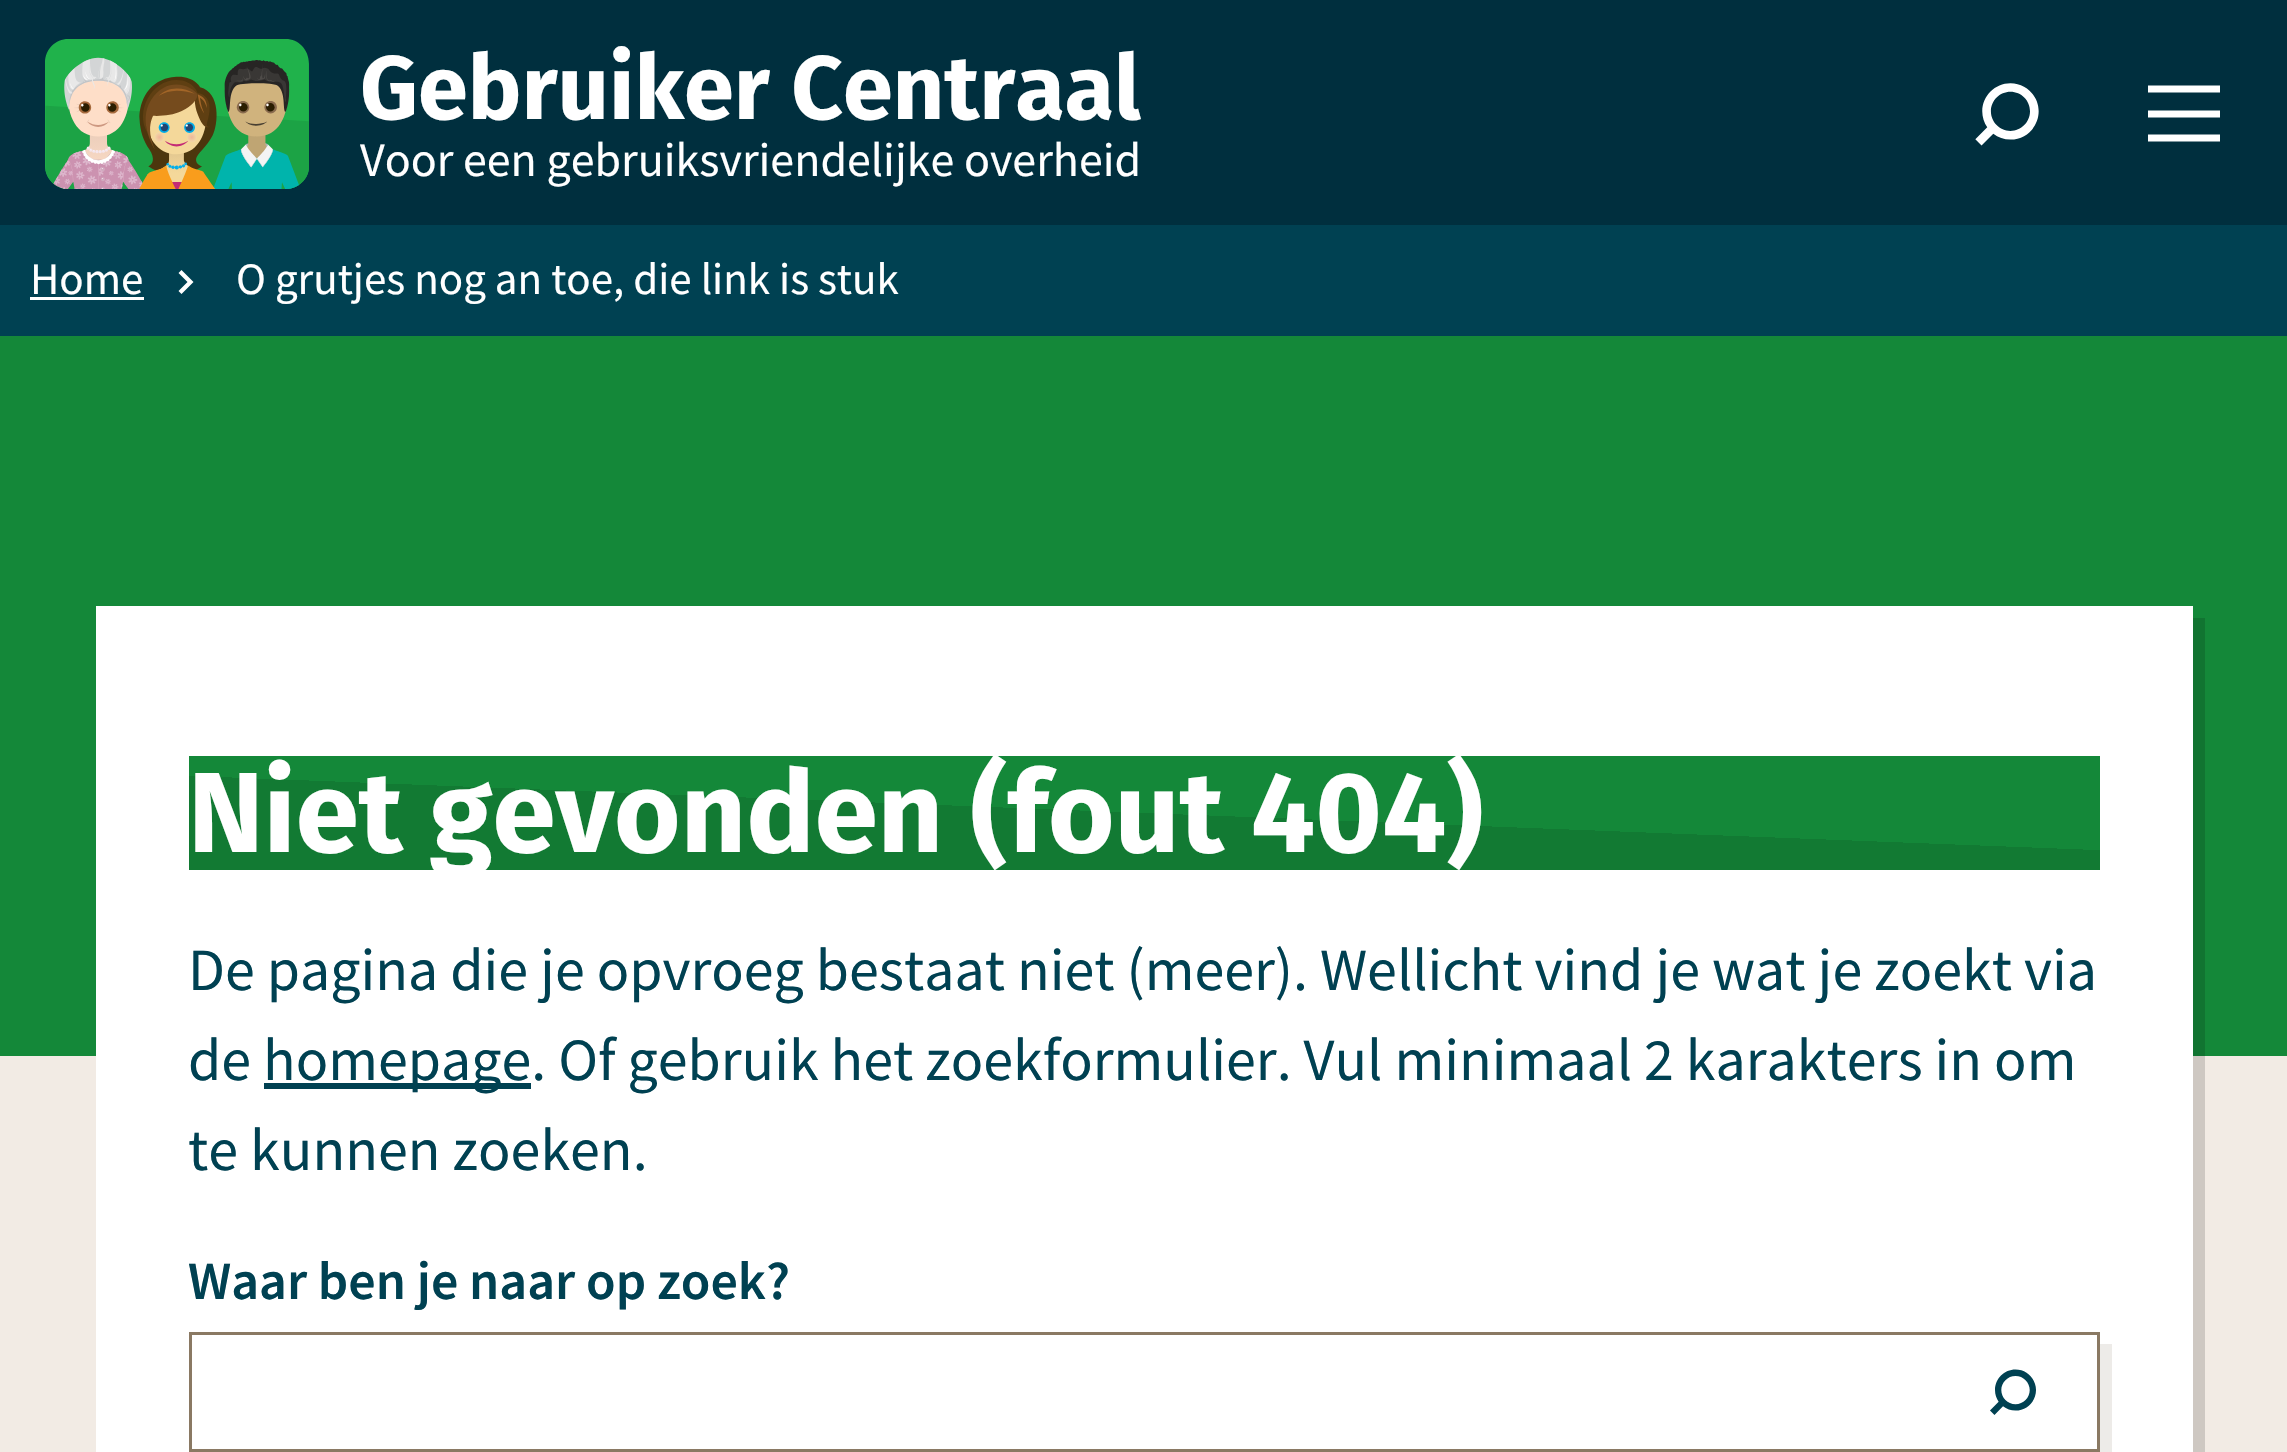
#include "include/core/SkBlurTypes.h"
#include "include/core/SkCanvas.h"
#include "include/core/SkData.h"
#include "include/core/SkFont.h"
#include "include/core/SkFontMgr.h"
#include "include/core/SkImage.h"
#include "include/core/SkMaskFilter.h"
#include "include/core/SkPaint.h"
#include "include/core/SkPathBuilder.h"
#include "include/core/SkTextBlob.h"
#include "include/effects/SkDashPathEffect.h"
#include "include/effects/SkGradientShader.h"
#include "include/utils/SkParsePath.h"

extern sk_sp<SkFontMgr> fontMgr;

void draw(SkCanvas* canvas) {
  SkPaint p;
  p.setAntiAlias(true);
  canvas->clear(SkColorSetRGB(0, 65, 82));
  p.setColor(SkColorSetRGB(0, 47, 62));
  canvas->drawRect(SkRect::MakeLTRB(0, 0, 2287, 225), p);
  canvas->drawImageRect(SkImages::DeferredFromEncodedData(SkData::MakeFromFileName("images/1.png")), SkRect::MakeLTRB(45, 39, 309, 189), SkSamplingOptions());
  canvas->drawImageRect(SkImages::DeferredFromEncodedData(SkData::MakeFromFileName("images/2.png")), SkRect::MakeLTRB(1975, 83, 2039, 146), SkSamplingOptions());
  p.setStyle(SkPaint::kStroke_Style);
  p.setStrokeWidth(7.2f);
  p.setColor(SK_ColorWHITE);
  canvas->drawPath(SkPathBuilder().moveTo(2148, 89).lineTo(2220, 89).detach(), p);
  canvas->drawPath(SkPathBuilder().moveTo(2148, 114).lineTo(2220, 114).detach(), p);
  canvas->drawPath(SkPathBuilder().moveTo(2148, 138).lineTo(2220, 138).detach(), p);
  p.setStyle(SkPaint::kFill_Style);
  canvas->drawRect(SkRect::MakeLTRB(30, 297, 144, 300), p);
  canvas->drawPath(SkPathBuilder().moveTo(181.5f, 270).lineTo(178.5f, 273).lineTo(187.5f, 282).lineTo(178.5f, 291).lineTo(181.5f, 294).lineTo(193.5f, 282).close().detach(), p);
  p.setColor(SkColorSetRGB(242, 235, 228));
  canvas->drawRect(SkRect::MakeLTRB(0, 1056, 2287, 1452), p);
  p.setColor(SkColorSetRGB(20, 136, 57));
  canvas->drawRect(SkRect::MakeLTRB(0, 336, 2287, 1056), p);
  p.setColor(SkColorSetARGB(38, 0, 0, 0));
  canvas->drawPath(SkPathBuilder().moveTo(108, 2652).lineTo(108, 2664).lineTo(2205, 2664).lineTo(2205, 618).lineTo(2193, 618).lineTo(2193, 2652).close().detach(), p);
  p.setColor(SK_ColorWHITE);
  canvas->drawRect(SkRect::MakeLTRB(96, 606, 2193, 1452), p);
  {
    const SkColor colors[] = {SkColorSetRGB(20, 136, 57), SkColorSetRGB(18, 122, 51)};
    const float stops[] = {0.5f, 0.5f};
    const SkPoint ends[] = {{1148, 723}, {1141, 903}};
    p.setShader(SkGradientShader::MakeLinear(ends, colors, stops, 2, SkTileMode::kClamp));
    p.setAlpha(255);
  }
  canvas->drawRect(SkRect::MakeLTRB(189, 756, 2100, 870), p);
  p.setShader(nullptr);
  p.setColor(SkColorSetRGB(0, 65, 82));
  canvas->drawRect(SkRect::MakeLTRB(264, 1083, 531, 1089), p);
  p.setColor(SkColorSetRGB(237, 235, 232));
  canvas->drawPath(SkPathBuilder().moveTo(201, 1452).lineTo(201, 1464).lineTo(2112, 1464).lineTo(2112, 1344).lineTo(2100, 1344).lineTo(2100, 1452).close().detach(), p);
  p.setStyle(SkPaint::kStroke_Style);
  p.setStrokeWidth(3);
  p.setColor(SkColorSetRGB(138, 121, 99));
  canvas->drawRect(SkRect::MakeLTRB(190.5f, 1333.5f, 2098.5f, 1450.5f), p);
  canvas->drawImageRect(SkImages::DeferredFromEncodedData(SkData::MakeFromFileName("images/3.png")), SkRect::MakeLTRB(1990, 1369, 2036, 1415), SkSamplingOptions());
  SkFont font1(fontMgr->matchFamilyStyle("Fira Sans", SkFontStyle::Bold()), 90);
  font1.setSubpixel(true);
  p.setStyle(SkPaint::kFill_Style);
  p.setColor(SK_ColorWHITE);
  canvas->drawString("Gebruiker Centraal", 360, 119, font1, p);
  SkFont font2(fontMgr->matchFamilyStyle("Source Sans Pro", SkFontStyle::Normal()), 48);
  font2.setSubpixel(true);
  canvas->drawString("Voor een gebruiksvriendelijke overheid", 360, 176, font2, p);
  SkFont font3(fontMgr->matchFamilyStyle("Source Sans Pro", SkFontStyle::Normal()), 45);
  font3.setSubpixel(true);
  canvas->drawString("Home", 30, 294, font3, p);
  canvas->drawString("O grutjes nog an toe, die link is stuk", 236, 294, font3, p);
  SkFont font4(fontMgr->matchFamilyStyle("Fira Sans", SkFontStyle::Bold()), 114);
  font4.setSubpixel(true);
  canvas->drawString("Niet gevonden (fout 404)", 188, 852, font4, p);
  SkFont font5(fontMgr->matchFamilyStyle("Source Sans Pro", SkFontStyle::Normal()), 60);
  font5.setSubpixel(true);
  p.setColor(SkColorSetRGB(0, 65, 82));
  canvas->drawString("De pagina die je opvroeg bestaat niet (meer). Wellicht vind je wat je zoekt via", 188, 990, font5, p);
  canvas->drawString("de", 188, 1080, font5, p);
  canvas->drawString("homepage. Of gebruik het zoekformulier. Vul minimaal 2 karakters in om", 263, 1080, font5, p);
  canvas->drawString("te kunnen zoeken.", 188, 1170, font5, p);
  SkFont font6(fontMgr->matchFamilyStyle("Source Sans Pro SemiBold", SkFontStyle(600, SkFontStyle::kNormal_Width, SkFontStyle::kUpright_Slant)), 54);
  font6.setSubpixel(true);
  canvas->drawString("Waar ben je naar op zoek?", 188, 1299, font6, p);
}
